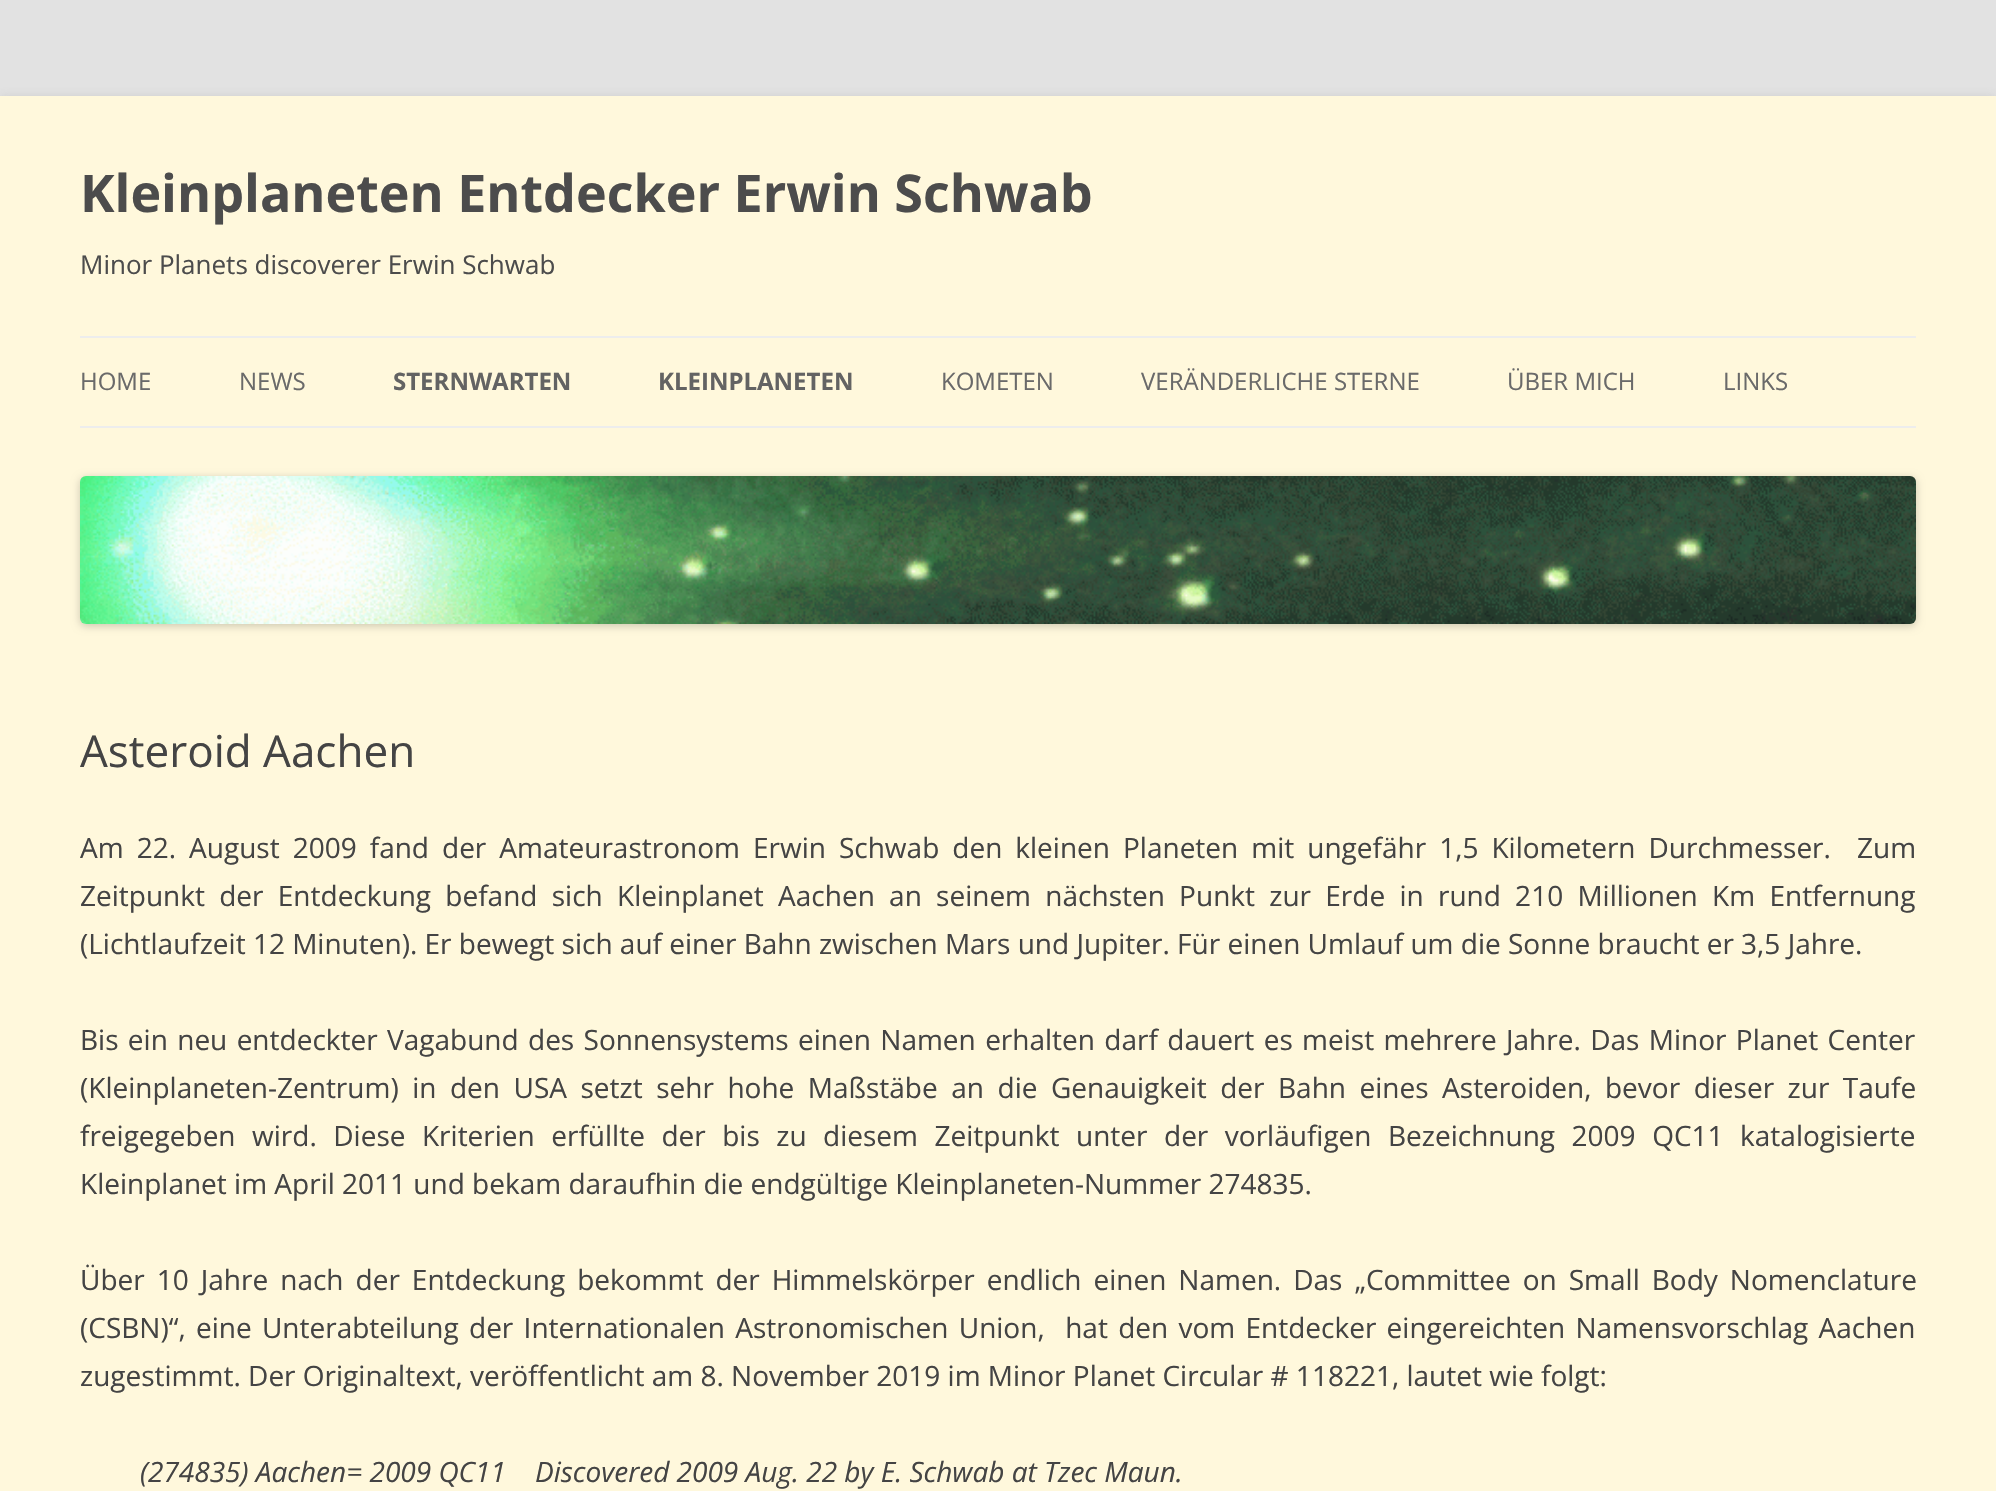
#include "include/core/SkBlurTypes.h"
#include "include/core/SkCanvas.h"
#include "include/core/SkData.h"
#include "include/core/SkFont.h"
#include "include/core/SkFontMgr.h"
#include "include/core/SkImage.h"
#include "include/core/SkMaskFilter.h"
#include "include/core/SkPaint.h"
#include "include/core/SkPathBuilder.h"
#include "include/core/SkTextBlob.h"
#include "include/effects/SkDashPathEffect.h"
#include "include/effects/SkGradientShader.h"
#include "include/utils/SkParsePath.h"

extern sk_sp<SkFontMgr> fontMgr;

void draw(SkCanvas* canvas) {
  SkPaint p;
  p.setAntiAlias(true);
  auto spacedText = [&](const char* s, float x, float y, const SkFont& font, const SkPaint& ink, float letter, float word) {
    std::vector<SkGlyphID> glyphs(font.countText(s, strlen(s), SkTextEncoding::kUTF8));
    std::vector<float> xs(glyphs.size());
    font.textToGlyphs(s, strlen(s), SkTextEncoding::kUTF8, glyphs);
    font.getXPos(glyphs, xs, x);
    float extra = 0;
    for (size_t i = 0; i < glyphs.size(); i++) {
      xs[i] += extra;
      extra += letter + word * (glyphs[i] == font.unicharToGlyph(' '));
    }
    canvas->drawTextBlob(SkTextBlob::MakeFromPosHGlyphs(glyphs, xs, y, font), 0, 0, ink);
  };
  canvas->clear(SkColorSetRGB(226, 226, 226));
  p.setColor(SkColorSetARGB(77, 100, 100, 100));
  p.setMaskFilter(SkMaskFilter::MakeBlur(kNormal_SkBlurStyle, 6));
  canvas->drawRect(SkRect::MakeLTRB(0, 100, 1996, 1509), p);
  p.setMaskFilter(nullptr);
  p.setColor(SkColorSetRGB(255, 248, 220));
  canvas->drawRect(SkRect::MakeLTRB(0, 96, 1996, 1491), p);
  p.setColor(SkColorSetRGB(237, 237, 237));
  canvas->drawRect(SkRect::MakeLTRB(80, 336, 1916, 338), p);
  canvas->drawRect(SkRect::MakeLTRB(80, 426, 1916, 428), p);
  p.setColor(SkColorSetARGB(51, 0, 0, 0));
  p.setMaskFilter(SkMaskFilter::MakeBlur(kNormal_SkBlurStyle, 4));
  canvas->drawRoundRect(SkRect::MakeLTRB(80, 478, 1916, 626), 6, 6, p);
  p.setMaskFilter(nullptr);
  canvas->drawImageRect(SkImages::DeferredFromEncodedData(SkData::MakeFromFileName("images/1.png")), SkRect::MakeLTRB(80, 476, 1916, 624), SkSamplingOptions());
  SkFont font1(fontMgr->matchFamilyStyle("Open Sans", SkFontStyle::Bold()), 52);
  font1.setSubpixel(true);
  p.setColor(SkColorSetRGB(76, 76, 76));
  canvas->drawString("Kleinplaneten Entdecker Erwin Schwab", 80, 212, font1, p);
  SkFont font2(fontMgr->matchFamilyStyle("Open Sans", SkFontStyle::Normal()), 26);
  font2.setSubpixel(true);
  canvas->drawString("Minor Planets discoverer Erwin Schwab", 80, 274, font2, p);
  SkFont font3(fontMgr->matchFamilyStyle("Open Sans", SkFontStyle::Normal()), 24);
  font3.setSubpixel(true);
  p.setColor(SkColorSetRGB(106, 106, 106));
  canvas->drawString("HOME", 80, 390, font3, p);
  canvas->drawString("NEWS", 239, 390, font3, p);
  SkFont font4(fontMgr->matchFamilyStyle("Open Sans", SkFontStyle::Bold()), 24);
  font4.setSubpixel(true);
  p.setColor(SkColorSetRGB(99, 99, 99));
  canvas->drawString("STERNWARTEN", 393, 390, font4, p);
  canvas->drawString("KLEINPLANETEN", 658, 390, font4, p);
  p.setColor(SkColorSetRGB(106, 106, 106));
  canvas->drawString("KOMETEN", 941, 390, font3, p);
  canvas->drawString("VERÄNDERLICHE STERNE", 1141, 390, font3, p);
  canvas->drawString("ÜBER MICH", 1507, 390, font3, p);
  canvas->drawString("LINKS", 1723, 390, font3, p);
  SkFont font5(fontMgr->matchFamilyStyle("Open Sans", SkFontStyle::Normal()), 44);
  font5.setSubpixel(true);
  p.setColor(SkColorSetRGB(68, 68, 68));
  canvas->drawString("Asteroid Aachen", 80, 767, font5, p);
  SkFont font6(fontMgr->matchFamilyStyle("Open Sans", SkFontStyle::Normal()), 28);
  font6.setSubpixel(true);
  spacedText("Am 22. August 2009 fand der Amateurastronom Erwin Schwab den kleinen Planeten mit ungefähr 1,5 Kilometern Durchmesser.  Zum", 80, 858, font6, p, 0, 5.75f);
  spacedText("Zeitpunkt der Entdeckung befand sich Kleinplanet Aachen an seinem nächsten Punkt zur Erde in rund 210 Millionen Km Entfernung", 80, 906, font6, p, 0, 7);
  canvas->drawString("(Lichtlaufzeit 12 Minuten). Er bewegt sich auf einer Bahn zwischen Mars und Jupiter. Für einen Umlauf um die Sonne braucht er 3,5 Jahre.", 80, 954, font6, p);
  spacedText("Bis ein neu entdeckter Vagabund des Sonnensystems einen Namen erhalten darf dauert es meist mehrere Jahre. Das Minor Planet Center", 80, 1050, font6, p, 0, 2.1f);
  spacedText("(Kleinplaneten-Zentrum) in den USA setzt sehr hohe Maßstäbe an die Genauigkeit der Bahn eines Asteroiden, bevor dieser zur Taufe", 80, 1098, font6, p, 0, 6.25f);
  spacedText("freigegeben wird. Diese Kriterien erfüllte der bis zu diesem Zeitpunkt unter der vorläufigen Bezeichnung 2009 QC11 katalogisierte", 80, 1146, font6, p, 0, 9.25f);
  canvas->drawString("Kleinplanet im April 2011 und bekam daraufhin die endgültige Kleinplaneten-Nummer 274835.", 80, 1194, font6, p);
  spacedText("Über 10 Jahre nach der Entdeckung bekommt der Himmelskörper endlich einen Namen. Das „Committee on Small Body Nomenclature", 80, 1290, font6, p, 0, 4.75f);
  spacedText("(CSBN)“, eine Unterabteilung der Internationalen Astronomischen Union,  hat den vom Entdecker eingereichten Namensvorschlag Aachen", 80, 1338, font6, p, 0, 3);
  canvas->drawString("zugestimmt. Der Originaltext, veröffentlicht am 8. November 2019 im Minor Planet Circular # 118221, lautet wie folgt:", 80, 1386, font6, p);
  SkFont font7(fontMgr->matchFamilyStyle("Open Sans", SkFontStyle::Italic()), 28);
  font7.setSubpixel(true);
  canvas->drawString("(274835) Aachen= 2009 QC11    Discovered 2009 Aug. 22 by E. Schwab at Tzec Maun.", 140, 1482, font7, p);
}
